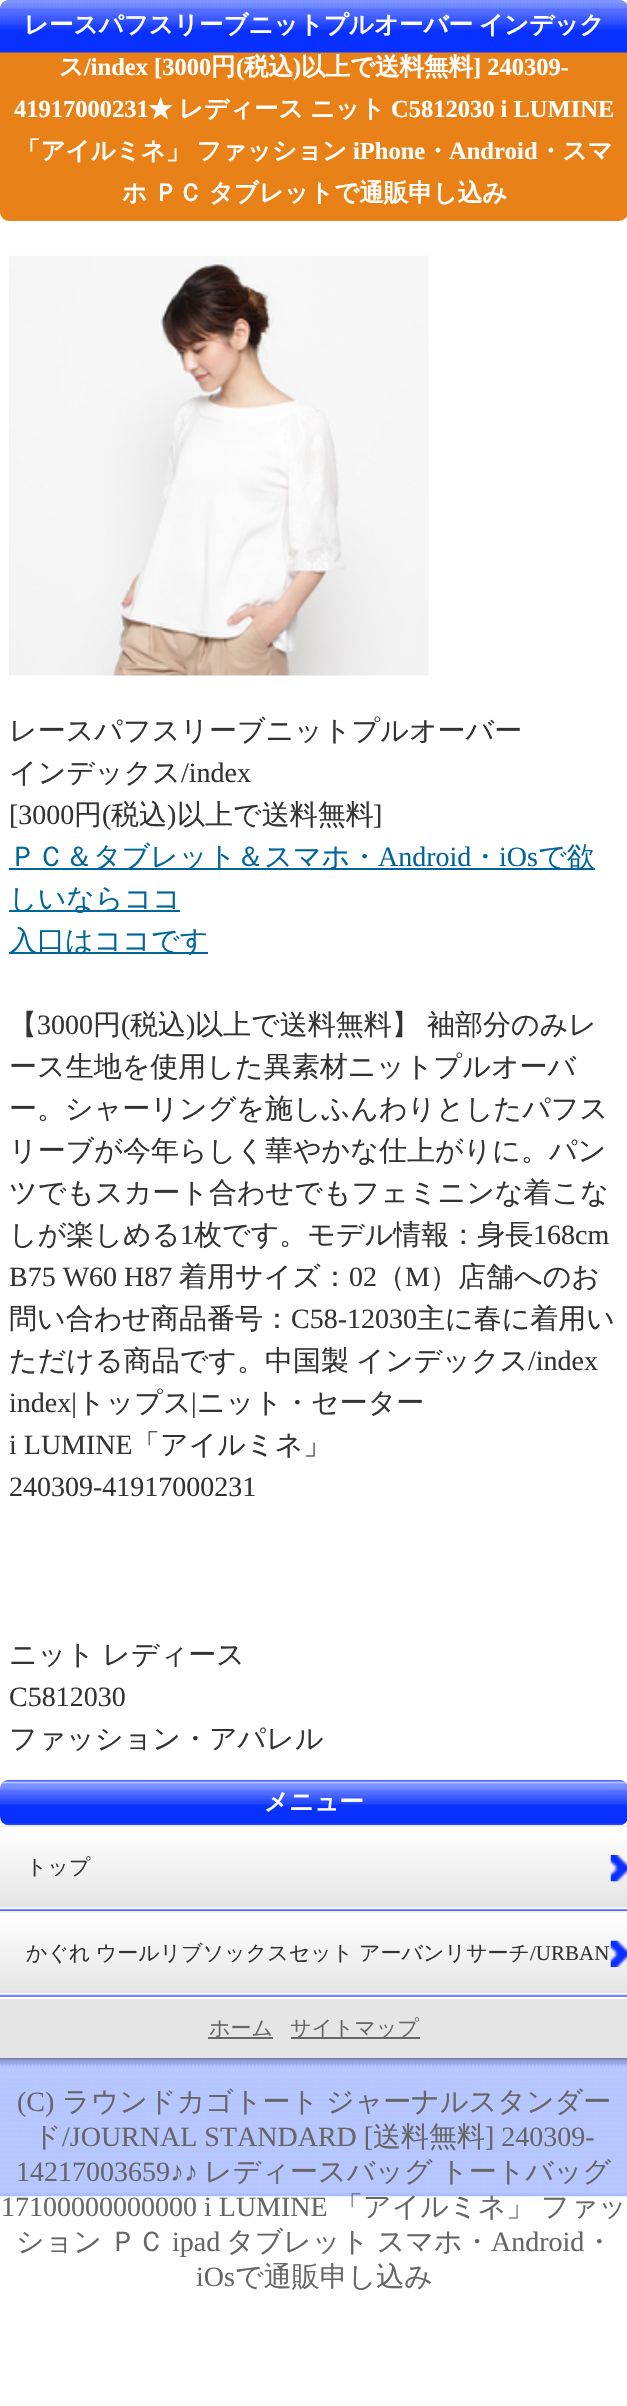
#include "include/core/SkBlurTypes.h"
#include "include/core/SkCanvas.h"
#include "include/core/SkData.h"
#include "include/core/SkFont.h"
#include "include/core/SkFontMgr.h"
#include "include/core/SkImage.h"
#include "include/core/SkMaskFilter.h"
#include "include/core/SkPaint.h"
#include "include/core/SkPathBuilder.h"
#include "include/core/SkTextBlob.h"
#include "include/effects/SkDashPathEffect.h"
#include "include/effects/SkGradientShader.h"
#include "include/utils/SkParsePath.h"

extern sk_sp<SkFontMgr> fontMgr;

void draw(SkCanvas* canvas) {
  SkPaint p;
  p.setAntiAlias(true);
  auto spacedText = [&](const char* s, float x, float y, const SkFont& font, const SkPaint& ink, float letter, float word) {
    std::vector<SkGlyphID> glyphs(font.countText(s, strlen(s), SkTextEncoding::kUTF8));
    std::vector<float> xs(glyphs.size());
    font.textToGlyphs(s, strlen(s), SkTextEncoding::kUTF8, glyphs);
    font.getXPos(glyphs, xs, x);
    float extra = 0;
    for (size_t i = 0; i < glyphs.size(); i++) {
      xs[i] += extra;
      extra += letter + word * (glyphs[i] == font.unicharToGlyph(' '));
    }
    canvas->drawTextBlob(SkTextBlob::MakeFromPosHGlyphs(glyphs, xs, y, font), 0, 0, ink);
  };
  canvas->clear(SK_ColorWHITE);
  p.setColor(SkColorSetRGB(232, 130, 24));
  canvas->drawRoundRect(SkRect::MakeLTRB(0, 0, 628, 221), 9, 9, p);
  canvas->drawImageRect(SkImages::DeferredFromEncodedData(SkData::MakeFromFileName("images/1.png")), SkRect::MakeLTRB(0, 0, 627, 53), SkSamplingOptions());
  canvas->drawImageRect(SkImages::DeferredFromEncodedData(SkData::MakeFromFileName("images/2.png")), SkRect::MakeLTRB(9, 255, 429, 676), SkSamplingOptions());
  p.setColor(SkColorSetRGB(0, 102, 153));
  canvas->drawRect(SkRect::MakeLTRB(9, 868, 595, 870), p);
  canvas->drawRect(SkRect::MakeLTRB(9, 910, 180, 912), p);
  canvas->drawRect(SkRect::MakeLTRB(9, 952, 208, 954), p);
  p.setColor(SkColorSetRGB(239, 239, 239));
  canvas->drawRect(SkRect::MakeLTRB(0, 1825, 627, 1997), p);
  canvas->drawImageRect(SkImages::DeferredFromEncodedData(SkData::MakeFromFileName("images/3.png")), SkRect::MakeLTRB(0, 1779, 627, 1826), SkSamplingOptions());
  canvas->drawImageRect(SkImages::DeferredFromEncodedData(SkData::MakeFromFileName("images/4.png")), SkRect::MakeLTRB(0, 1827, 627, 1911), SkSamplingOptions());
  canvas->drawImageRect(SkImages::DeferredFromEncodedData(SkData::MakeFromFileName("images/5.png")), SkRect::MakeLTRB(610, 1855, 627, 1882), SkSamplingOptions());
  canvas->drawImageRect(SkImages::DeferredFromEncodedData(SkData::MakeFromFileName("images/6.png")), SkRect::MakeLTRB(0, 1912, 627, 1997), SkSamplingOptions());
  canvas->drawImageRect(SkImages::DeferredFromEncodedData(SkData::MakeFromFileName("images/7.png")), SkRect::MakeLTRB(610, 1940, 627, 1967), SkSamplingOptions());
  p.setColor(SkColorSetRGB(229, 229, 229));
  canvas->drawRect(SkRect::MakeLTRB(0, 1999, 627, 2058), p);
  p.setColor(SkColorSetRGB(102, 102, 102));
  canvas->drawRect(SkRect::MakeLTRB(208, 2037, 273, 2039), p);
  canvas->drawRect(SkRect::MakeLTRB(291, 2037, 420, 2039), p);
  canvas->drawImageRect(SkImages::DeferredFromEncodedData(SkData::MakeFromFileName("images/8.png")), SkRect::MakeLTRB(0, 2058, 627, 2197), SkSamplingOptions());
  SkFont font1(fontMgr->matchFamilyStyle("WenQuanYi Zen Hei", SkFontStyle::Bold()), 24.5f);
  font1.setSubpixel(true);
  p.setColor(SK_ColorWHITE);
  canvas->drawString("レースパフスリーブニットプルオーバー", 24, 33, font1, p);
  canvas->drawString("インデック", 479, 33, font1, p);
  canvas->drawString("ス", 59, 75, font1, p);
  SkFont font2(fontMgr->matchFamilyStyle("Liberation Serif", SkFontStyle::Bold()), 24.5f);
  font2.setSubpixel(true);
  canvas->drawString("/index [3000", 84, 75, font2, p);
  canvas->drawString("円", 211, 75, font1, p);
  canvas->drawString("(", 236, 75, font2, p);
  canvas->drawString("税込", 244, 75, font1, p);
  canvas->drawString(")", 293, 75, font2, p);
  canvas->drawString("以上で送料無料", 301, 75, font1, p);
  canvas->drawString("] 240309-", 473, 75, font2, p);
  canvas->drawString("41917000231", 14, 117, font2, p);
  spacedText("★ レディース ニット", 148, 117, font1, p, 0, -1);
  canvas->drawString("C5812030 i LUMINE", 391, 117, font2, p);
  spacedText("「アイルミネ」 ファッション", 16, 159, font1, p, 0, -1);
  canvas->drawString("iPhone", 353, 159, font2, p);
  canvas->drawString("・", 425, 159, font1, p);
  canvas->drawString("Android", 449, 159, font2, p);
  canvas->drawString("・スマ", 538, 159, font1, p);
  spacedText("ホ ＰＣ タブレットで通販申し込み", 122, 201, font1, p, 0, -1);
  SkFont font3(fontMgr->matchFamilyStyle("WenQuanYi Zen Hei", SkFontStyle(500, SkFontStyle::kNormal_Width, SkFontStyle::kUpright_Slant)), 28);
  font3.setSubpixel(true);
  p.setColor(SkColorSetRGB(51, 51, 51));
  canvas->drawString("レースパフスリーブニットプルオーバー", 9, 740, font3, p);
  canvas->drawString("インデックス", 9, 782, font3, p);
  SkFont font4(fontMgr->matchFamilyStyle("Liberation Serif", SkFontStyle::Normal()), 28);
  font4.setSubpixel(true);
  canvas->drawString("/index", 181, 782, font4, p);
  canvas->drawString("[3000", 9, 824, font4, p);
  canvas->drawString("円", 74, 824, font3, p);
  canvas->drawString("(", 102, 824, font4, p);
  canvas->drawString("税込", 111, 824, font3, p);
  canvas->drawString(")", 167, 824, font4, p);
  canvas->drawString("以上で送料無料", 177, 824, font3, p);
  canvas->drawString("]", 373, 824, font4, p);
  p.setColor(SkColorSetRGB(0, 102, 153));
  canvas->drawString("ＰＣ＆タブレット＆スマホ・", 9, 866, font3, p);
  canvas->drawString("Android", 378, 866, font4, p);
  canvas->drawString("・", 471, 866, font3, p);
  canvas->drawString("iOs", 499, 866, font4, p);
  canvas->drawString("で欲", 538, 866, font3, p);
  canvas->drawString("しいならココ", 9, 908, font3, p);
  canvas->drawString("入口はココです", 9, 950, font3, p);
  p.setColor(SkColorSetRGB(51, 51, 51));
  canvas->drawString("【", 9, 1034, font3, p);
  canvas->drawString("3000", 37, 1034, font4, p);
  canvas->drawString("円", 93, 1034, font3, p);
  canvas->drawString("(", 121, 1034, font4, p);
  canvas->drawString("税込", 130, 1034, font3, p);
  canvas->drawString(")", 186, 1034, font4, p);
  spacedText("以上で送料無料】 袖部分のみレ", 195, 1034, font3, p, 0, -1);
  canvas->drawString("ース生地を使用した異素材ニットプルオーバ", 9, 1076, font3, p);
  canvas->drawString("ー。シャーリングを施しふんわりとしたパフス", 9, 1118, font3, p);
  canvas->drawString("リーブが今年らしく華やかな仕上がりに。パン", 9, 1160, font3, p);
  canvas->drawString("ツでもスカート合わせでもフェミニンな着こな", 9, 1202, font3, p);
  canvas->drawString("しが楽しめる", 9, 1244, font3, p);
  canvas->drawString("1", 180, 1244, font4, p);
  canvas->drawString("枚です。モデル情報：身長", 194, 1244, font3, p);
  canvas->drawString("168cm", 533, 1244, font4, p);
  canvas->drawString("B75 W60 H87", 9, 1286, font4, p);
  canvas->drawString("着用サイズ：", 179, 1286, font3, p);
  canvas->drawString("02", 349, 1286, font4, p);
  canvas->drawString("（", 377, 1286, font3, p);
  canvas->drawString("M", 405, 1286, font4, p);
  canvas->drawString("）店舗へのお", 430, 1286, font3, p);
  canvas->drawString("問い合わせ商品番号：", 9, 1328, font3, p);
  canvas->drawString("C58-12030", 291, 1328, font4, p);
  canvas->drawString("主に春に着用い", 417, 1328, font3, p);
  spacedText("ただける商品です。中国製 インデックス", 9, 1370, font3, p, 0, -1);
  canvas->drawString("/index", 528, 1370, font4, p);
  canvas->drawString("index|", 9, 1412, font4, p);
  canvas->drawString("トップス", 77, 1412, font3, p);
  canvas->drawString("|", 191, 1412, font4, p);
  canvas->drawString("ニット・セーター", 197, 1412, font3, p);
  canvas->drawString("i LUMINE", 9, 1454, font4, p);
  canvas->drawString("「アイルミネ」", 132, 1454, font3, p);
  canvas->drawString("240309-41917000231", 9, 1496, font4, p);
  spacedText("ニット レディース", 9, 1664, font3, p, 0, -1);
  canvas->drawString("C5812030", 9, 1706, font4, p);
  canvas->drawString("ファッション・アパレル", 9, 1748, font3, p);
  p.setColor(SK_ColorWHITE);
  canvas->drawString("メニュー", 264, 1810, font1, p);
  SkFont font5(fontMgr->matchFamilyStyle("WenQuanYi Zen Hei", SkFontStyle(500, SkFontStyle::kNormal_Width, SkFontStyle::kUpright_Slant)), 21);
  font5.setSubpixel(true);
  p.setColor(SkColorSetRGB(51, 51, 51));
  canvas->drawString("トップ", 26, 1874, font5, p);
  spacedText("かぐれ ウールリブソックスセット", 26, 1960, font5, p, 0, -1);
  canvas->drawString("アーバンリサーチ", 359, 1960, font5, p);
  SkFont font6(fontMgr->matchFamilyStyle("Liberation Serif", SkFontStyle::Normal()), 21);
  font6.setSubpixel(true);
  canvas->drawString("/URBAN", 530, 1960, font6, p);
  p.setColor(SkColorSetRGB(102, 102, 102));
  canvas->drawString("ホーム", 209, 2035, font5, p);
  canvas->drawString("サイトマップ", 290, 2035, font5, p);
  canvas->drawString("(C)", 17, 2111, font4, p);
  canvas->drawString("ラウンドカゴトート", 62, 2111, font3, p);
  canvas->drawString("ジャーナルスタンダー", 326, 2111, font3, p);
  canvas->drawString("ド", 33, 2146, font3, p);
  canvas->drawString("/JOURNAL STANDARD [", 62, 2146, font4, p);
  canvas->drawString("送料無料", 373, 2146, font3, p);
  canvas->drawString("] 240309-", 485, 2146, font4, p);
  canvas->drawString("14217003659♪♪", 16, 2181, font4, p);
  spacedText("レディースバッグ トートバッグ", 204, 2181, font3, p, 0, -1);
  canvas->drawString("17100000000000 i LUMINE", 1, 2216, font4, p);
  canvas->drawString("「アイルミネ」", 335, 2216, font3, p);
  canvas->drawString("ファッ", 541, 2216, font3, p);
  spacedText("ション ＰＣ", 16, 2251, font3, p, 0, -1);
  canvas->drawString("ipad", 172, 2251, font4, p);
  spacedText("タブレット スマホ・", 226, 2251, font3, p, 0, -1);
  canvas->drawString("Android", 491, 2251, font4, p);
  canvas->drawString("・", 585, 2251, font3, p);
  canvas->drawString("iOs", 196, 2286, font4, p);
  canvas->drawString("で通販申し込み", 235, 2286, font3, p);
}
